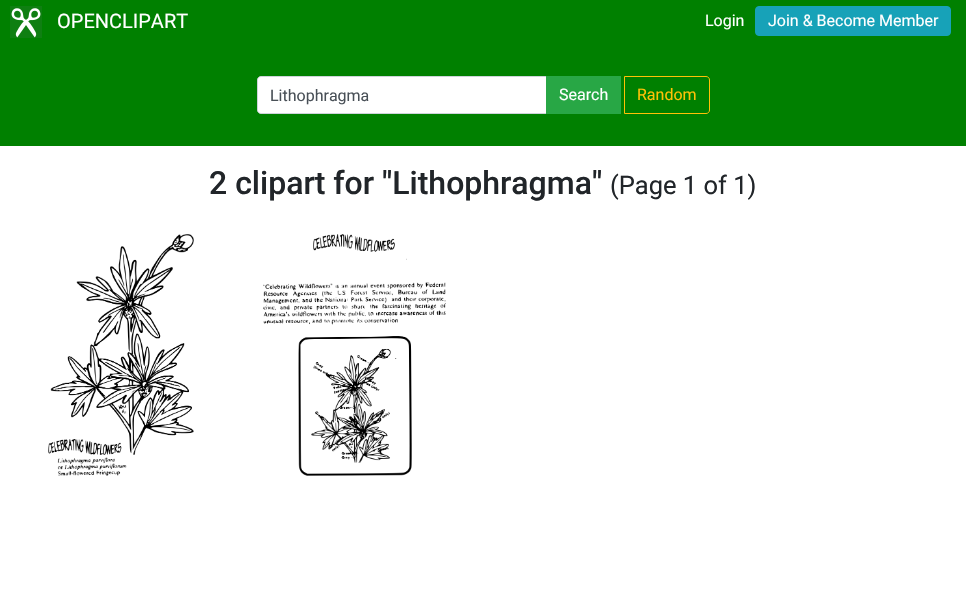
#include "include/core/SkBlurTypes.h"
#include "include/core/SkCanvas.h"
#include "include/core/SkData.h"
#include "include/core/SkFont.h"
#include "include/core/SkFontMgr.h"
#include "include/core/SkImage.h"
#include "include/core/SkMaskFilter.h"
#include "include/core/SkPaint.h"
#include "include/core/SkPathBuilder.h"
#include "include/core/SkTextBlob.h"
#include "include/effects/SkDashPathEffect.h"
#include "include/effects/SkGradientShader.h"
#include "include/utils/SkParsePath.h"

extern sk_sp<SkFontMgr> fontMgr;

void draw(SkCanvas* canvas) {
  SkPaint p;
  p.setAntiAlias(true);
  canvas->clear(SK_ColorWHITE);
  p.setColor(SkColorSetRGB(0, 128, 0));
  canvas->drawRect(SkRect::MakeLTRB(0, 0, 966, 146), p);
  canvas->drawImageRect(SkImages::DeferredFromEncodedData(SkData::MakeFromFileName("images/1.png")), SkRect::MakeLTRB(10, 6, 42, 38), SkSamplingOptions());
  p.setColor(SkColorSetRGB(23, 162, 184));
  canvas->drawRoundRect(SkRect::MakeLTRB(755.5f, 6.5f, 950.5f, 35.5f), 3.5f, 3.5f, p);
  p.setStyle(SkPaint::kStroke_Style);
  p.setStrokeWidth(1);
  canvas->drawRoundRect(SkRect::MakeLTRB(755.5f, 6.5f, 950.5f, 35.5f), 3.5f, 3.5f, p);
  p.setStyle(SkPaint::kFill_Style);
  p.setColor(SK_ColorWHITE);
  canvas->drawPath(SkPathBuilder().moveTo(261, 76.5f).lineTo(546.5f, 76.5f).lineTo(546.5f, 113.5f).lineTo(261, 113.5f).cubicTo(259, 113.5f, 257.5f, 112, 257.5f, 110).lineTo(257.5f, 80).cubicTo(257.5f, 78, 259, 76.5f, 261, 76.5f).close().detach(), p);
  p.setStyle(SkPaint::kStroke_Style);
  p.setColor(SkColorSetRGB(206, 212, 218));
  canvas->drawPath(SkPathBuilder().moveTo(261, 76.5f).lineTo(546.5f, 76.5f).lineTo(546.5f, 113.5f).lineTo(261, 113.5f).cubicTo(259, 113.5f, 257.5f, 112, 257.5f, 110).lineTo(257.5f, 80).cubicTo(257.5f, 78, 259, 76.5f, 261, 76.5f).close().detach(), p);
  p.setStyle(SkPaint::kFill_Style);
  p.setColor(SkColorSetRGB(40, 167, 69));
  canvas->drawRect(SkRect::MakeLTRB(546, 76, 621, 114), p);
  p.setStyle(SkPaint::kStroke_Style);
  p.setColor(SkColorSetRGB(255, 193, 7));
  canvas->drawPath(SkPathBuilder().moveTo(624.5f, 76.5f).lineTo(706, 76.5f).cubicTo(708, 76.5f, 709.5f, 78, 709.5f, 80).lineTo(709.5f, 110).cubicTo(709.5f, 112, 708, 113.5f, 706, 113.5f).lineTo(624.5f, 113.5f).close().detach(), p);
  canvas->drawImageRect(SkImages::DeferredFromEncodedData(SkData::MakeFromFileName("images/2.png")), SkRect::MakeLTRB(48, 234, 194, 476), SkSamplingOptions());
  canvas->drawImageRect(SkImages::DeferredFromEncodedData(SkData::MakeFromFileName("images/3.png")), SkRect::MakeLTRB(263, 234, 446, 476), SkSamplingOptions());
  SkFont font1(fontMgr->matchFamilyStyle("Roboto", SkFontStyle::Normal()), 20);
  font1.setSubpixel(true);
  p.setStyle(SkPaint::kFill_Style);
  p.setColor(SK_ColorWHITE);
  canvas->drawString("OPENCLIPART", 57, 28, font1, p);
  SkFont font2(fontMgr->matchFamilyStyle("Roboto", SkFontStyle::Normal()), 16);
  font2.setSubpixel(true);
  canvas->drawString("Login", 705, 26, font2, p);
  canvas->drawString("Join & Become Member", 768, 26, font2, p);
  p.setColor(SkColorSetRGB(73, 80, 87));
  canvas->drawString("Lithophragma", 270, 101, font2, p);
  p.setColor(SK_ColorWHITE);
  canvas->drawString("Search", 559, 100, font2, p);
  p.setColor(SkColorSetRGB(255, 193, 7));
  canvas->drawString("Random", 637, 100, font2, p);
  SkFont font3(fontMgr->matchFamilyStyle("Roboto", SkFontStyle(500, SkFontStyle::kNormal_Width, SkFontStyle::kUpright_Slant)), 32);
  font3.setSubpixel(true);
  p.setColor(SkColorSetRGB(33, 37, 41));
  canvas->drawString("2 clipart for \"Lithophragma\"", 209, 194, font3, p);
  SkFont font4(fontMgr->matchFamilyStyle("Roboto", SkFontStyle::Normal()), 25.5f);
  font4.setSubpixel(true);
  canvas->drawString("(Page 1 of 1)", 610, 194, font4, p);
}
